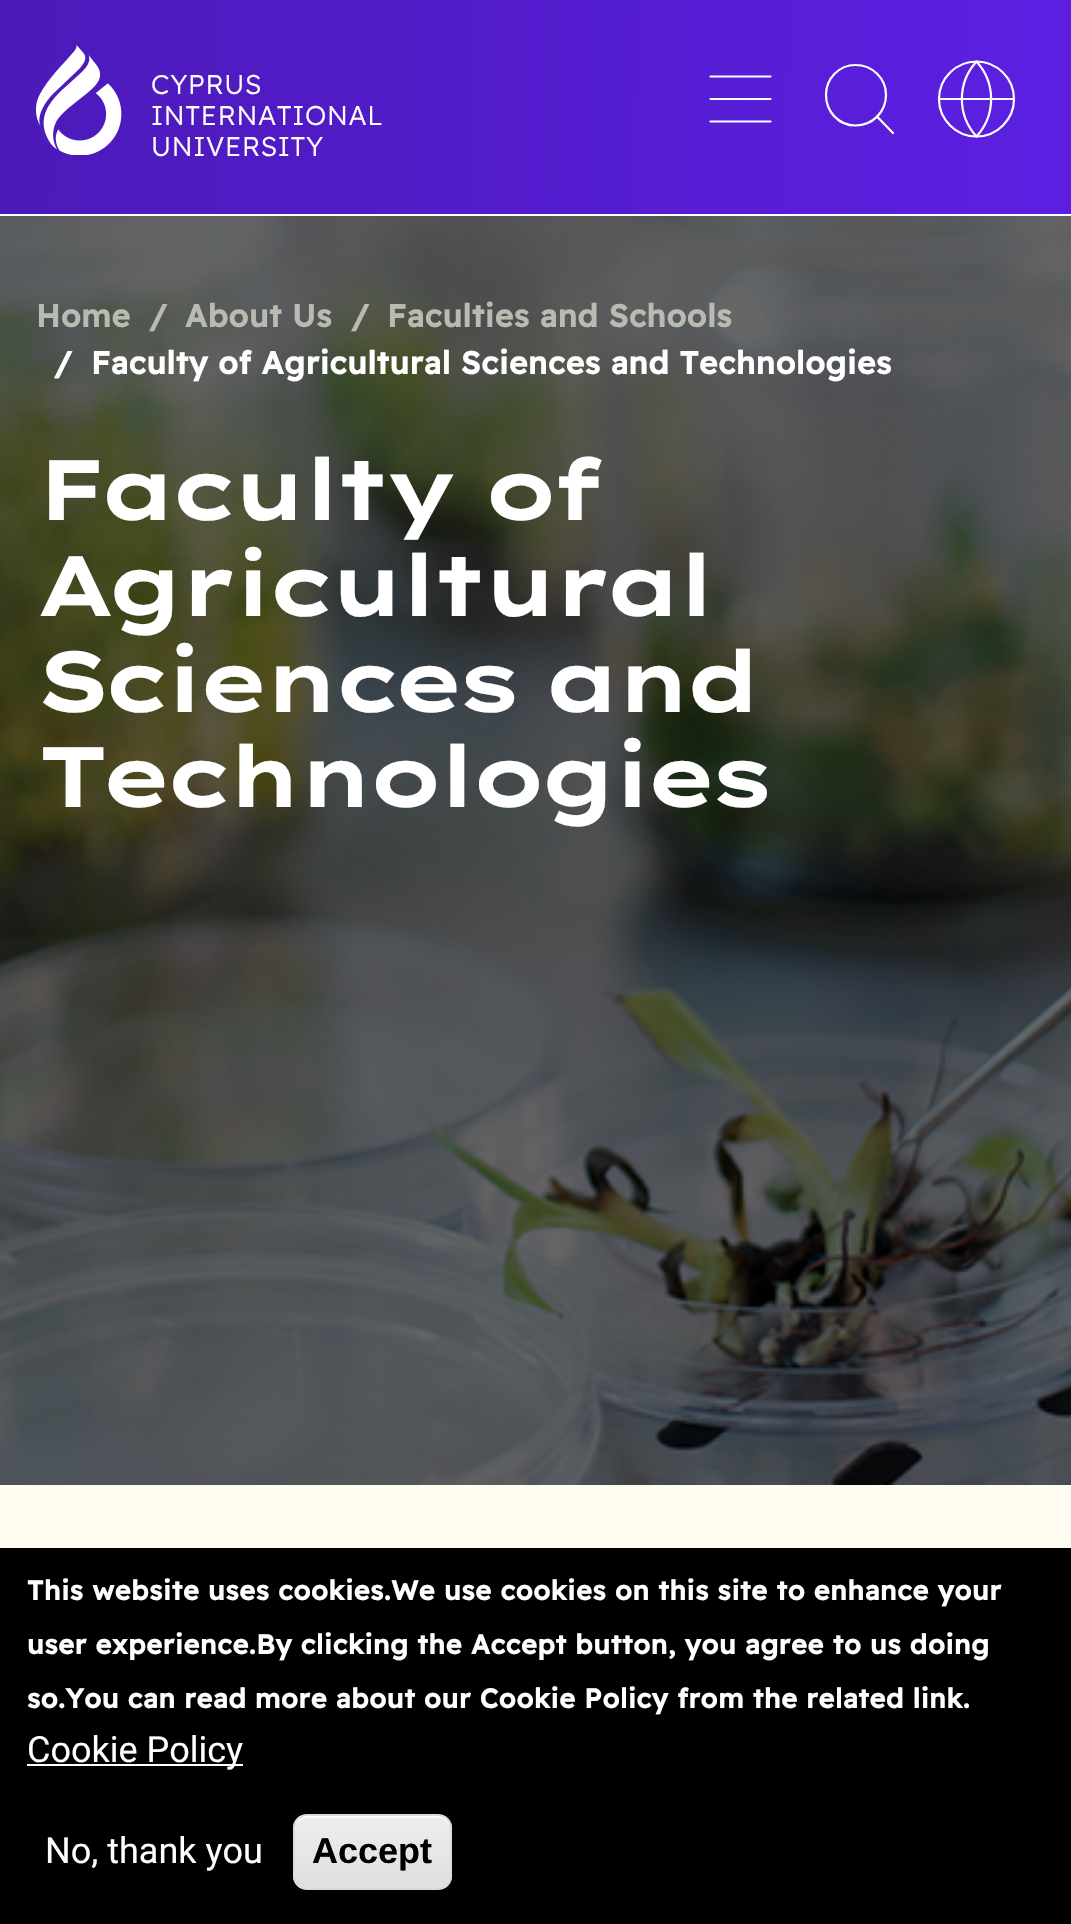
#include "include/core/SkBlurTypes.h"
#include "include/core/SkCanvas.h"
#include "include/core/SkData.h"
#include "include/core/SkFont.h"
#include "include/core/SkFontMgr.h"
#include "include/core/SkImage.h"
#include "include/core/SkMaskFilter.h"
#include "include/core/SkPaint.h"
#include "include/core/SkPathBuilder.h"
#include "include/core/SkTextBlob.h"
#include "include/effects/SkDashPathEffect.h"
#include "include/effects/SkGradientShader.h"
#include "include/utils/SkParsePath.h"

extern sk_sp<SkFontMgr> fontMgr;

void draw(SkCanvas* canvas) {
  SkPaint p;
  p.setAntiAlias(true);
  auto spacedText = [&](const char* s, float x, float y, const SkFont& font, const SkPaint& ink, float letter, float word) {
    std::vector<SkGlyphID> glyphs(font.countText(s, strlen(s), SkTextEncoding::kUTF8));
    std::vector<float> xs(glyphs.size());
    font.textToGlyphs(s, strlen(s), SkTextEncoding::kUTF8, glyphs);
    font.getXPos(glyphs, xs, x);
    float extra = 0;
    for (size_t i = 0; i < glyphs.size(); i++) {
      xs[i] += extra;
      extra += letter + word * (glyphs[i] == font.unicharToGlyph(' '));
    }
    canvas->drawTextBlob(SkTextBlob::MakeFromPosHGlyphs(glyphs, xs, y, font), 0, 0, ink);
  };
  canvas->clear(SkColorSetRGB(255, 252, 242));
  {
    const SkColor colors[] = {SkColorSetRGB(76, 26, 186), SkColorSetRGB(92, 31, 226)};
    const float stops[] = {0.02f, 0.99f};
    const SkPoint ends[] = {{-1.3f, 100}, {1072, 114}};
    p.setShader(SkGradientShader::MakeLinear(ends, colors, stops, 2, SkTileMode::kClamp));
    p.setAlpha(255);
  }
  canvas->drawRect(SkRect::MakeLTRB(0, 0, 1071, 214), p);
  p.setShader(nullptr);
  p.setColor(SK_ColorWHITE);
  canvas->drawRect(SkRect::MakeLTRB(0, 214, 1071, 216), p);
  canvas->drawImageRect(SkImages::DeferredFromEncodedData(SkData::MakeFromFileName("images/1.png")), SkRect::MakeLTRB(36, 45, 122, 155), SkSamplingOptions());
  p.setStyle(SkPaint::kStroke_Style);
  p.setStrokeWidth(2.2f);
  p.setStrokeCap(SkPaint::kRound_Cap);
  p.setStrokeJoin(SkPaint::kRound_Join);
  canvas->drawPath(SkPathBuilder().moveTo(710.5f, 99).lineTo(770.5f, 99).moveTo(710.5f, 76.5f).lineTo(770.5f, 76.5f).moveTo(710.5f, 121.5f).lineTo(770.5f, 121.5f).detach(), p);
  canvas->drawPath(SkPathBuilder().moveTo(855.5f, 125.5f).cubicTo(872.5f, 125.5f, 886, 112, 886, 95).cubicTo(886, 78.5f, 872.5f, 65, 855.5f, 65).cubicTo(839, 65, 826, 78.5f, 826, 95).cubicTo(826, 112, 839, 125.5f, 855.5f, 125.5f).close().detach(), p);
  canvas->drawPath(SkPathBuilder().moveTo(893, 133).lineTo(877, 116.5f).detach(), p);
  canvas->drawPath(SkPathBuilder().moveTo(976.5f, 136.5f).cubicTo(997, 136.5f, 1014, 119.5f, 1014, 99).cubicTo(1014, 78.5f, 997, 61.5f, 976.5f, 61.5f).cubicTo(956, 61.5f, 939, 78.5f, 939, 99).cubicTo(939, 119.5f, 956, 136.5f, 976.5f, 136.5f).close().detach(), p);
  canvas->drawPath(SkPathBuilder().moveTo(939, 99).lineTo(1014, 99).detach(), p);
  canvas->drawPath(SkPathBuilder().moveTo(976.5f, 61.5f).cubicTo(996, 83, 996, 115, 976.5f, 136.5f).cubicTo(957, 115, 957, 83, 976.5f, 61.5f).close().detach(), p);
  canvas->drawImageRect(SkImages::DeferredFromEncodedData(SkData::MakeFromFileName("images/2.png")), SkRect::MakeLTRB(0, 216, 1071, 1485), SkSamplingOptions());
  p.setStyle(SkPaint::kFill_Style);
  p.setColor(SK_ColorBLACK);
  canvas->drawRect(SkRect::MakeLTRB(0, 1548, 1071, 1924), p);
  p.setColor(SK_ColorWHITE);
  canvas->drawRect(SkRect::MakeLTRB(27, 1764, 243, 1766), p);
  canvas->save();
  canvas->clipPath(SkPathBuilder().moveTo(307, 1814).lineTo(438, 1814).cubicTo(445.5f, 1814, 452, 1820.5f, 452, 1828).lineTo(452, 1876).cubicTo(452, 1883.5f, 445.5f, 1890, 438, 1890).lineTo(307, 1890).cubicTo(299.5f, 1890, 293, 1883.5f, 293, 1876).lineTo(293, 1828).cubicTo(293, 1820.5f, 299.5f, 1814, 307, 1814).close().detach(), true);
  {
    const SkColor colors[] = {SkColorSetRGB(237, 237, 237), SkColorSetRGB(223, 223, 223)};
    const float stops[] = {0.05f, 1};
    const SkPoint ends[] = {{372, 1816}, {372, 1888}};
    p.setShader(SkGradientShader::MakeLinear(ends, colors, stops, 2, SkTileMode::kClamp));
    p.setAlpha(255);
  }
  canvas->drawRect(SkRect::MakeLTRB(293, 1816, 452, 1888), p);
  canvas->restore();
  p.setShader(nullptr);
  p.setColor(SK_ColorWHITE);
  canvas->drawPath(SkPathBuilder().moveTo(306, 1818).lineTo(439, 1818).cubicTo(445, 1818, 450, 1823, 450, 1829).cubicTo(450, 1811, 429, 1816, 417, 1816).lineTo(328, 1816).cubicTo(316, 1816, 295, 1811, 295, 1829).cubicTo(295, 1823, 300, 1818, 306, 1818).close().detach(), p);
  p.setStyle(SkPaint::kStroke_Style);
  p.setStrokeWidth(2);
  p.setStrokeCap(SkPaint::kButt_Cap);
  p.setStrokeJoin(SkPaint::kMiter_Join);
  p.setColor(SkColorSetRGB(220, 220, 220));
  canvas->drawRoundRect(SkRect::MakeLTRB(294, 1815, 451, 1889), 13, 13, p);
  SkFont font1(fontMgr->matchFamilyStyle("Readex Pro", SkFontStyle(300, SkFontStyle::kNormal_Width, SkFontStyle::kUpright_Slant)), 27);
  font1.setSubpixel(true);
  p.setStyle(SkPaint::kFill_Style);
  p.setColor(SK_ColorWHITE);
  spacedText("CYPRUS", 151, 94, font1, p, 0.72f, 0);
  spacedText("INTERNATIONAL", 151, 125, font1, p, 0.72f, 0);
  spacedText("UNIVERSITY", 151, 156, font1, p, 0.72f, 0);
  SkFont font2(fontMgr->matchFamilyStyle("Readex Pro", SkFontStyle::Bold()), 31.5f);
  font2.setSubpixel(true);
  p.setColor(SkColorSetRGB(185, 186, 177));
  spacedText("Home", 36, 327, font2, p, 0.72f, 0);
  spacedText("/", 149, 327, font2, p, 0.72f, 0);
  spacedText("About Us", 185, 327, font2, p, 0.72f, 0);
  spacedText("/", 351, 327, font2, p, 0.72f, 0);
  spacedText("Faculties and Schools", 387, 327, font2, p, 0.72f, 0);
  p.setColor(SK_ColorWHITE);
  spacedText("/", 54, 374, font2, p, 0.72f, 0);
  spacedText("Faculty of Agricultural Sciences and Technologies", 91, 374, font2, p, 0.72f, 0);
  SkFont font3(fontMgr->matchFamilyStyle("Lexend Tera", SkFontStyle::Bold()), 85.5f);
  font3.setSubpixel(true);
  spacedText("Faculty of", 36, 520, font3, p, -10.25f, 0);
  spacedText("Agricultural", 36, 616, font3, p, -10.25f, 0);
  spacedText("Sciences and", 36, 712, font3, p, -10.25f, 0);
  spacedText("Technologies", 36, 807, font3, p, -10.25f, 0);
  SkFont font4(fontMgr->matchFamilyStyle("Readex Pro", SkFontStyle::Bold()), 27);
  font4.setSubpixel(true);
  spacedText("This website uses cookies.We use cookies on this site to enhance your", 27, 1600, font4, p, 0.72f, 0);
  spacedText("user experience.By clicking the Accept button, you agree to us doing", 27, 1654, font4, p, 0.72f, 0);
  spacedText("so.You can read more about our Cookie Policy from the related link.", 27, 1708, font4, p, 0.72f, 0);
  SkFont font5(fontMgr->matchFamilyStyle("Roboto", SkFontStyle::Normal()), 36);
  font5.setSubpixel(true);
  canvas->drawString("Cookie Policy", 27, 1762, font5, p);
  canvas->drawString("No, thank you", 45, 1863, font5, p);
  SkFont font6(fontMgr->matchFamilyStyle("Liberation Sans", SkFontStyle::Bold()), 36);
  font6.setSubpixel(true);
  p.setColor(SK_ColorBLACK);
  canvas->drawString("Accept", 312, 1863, font6, p);
}
